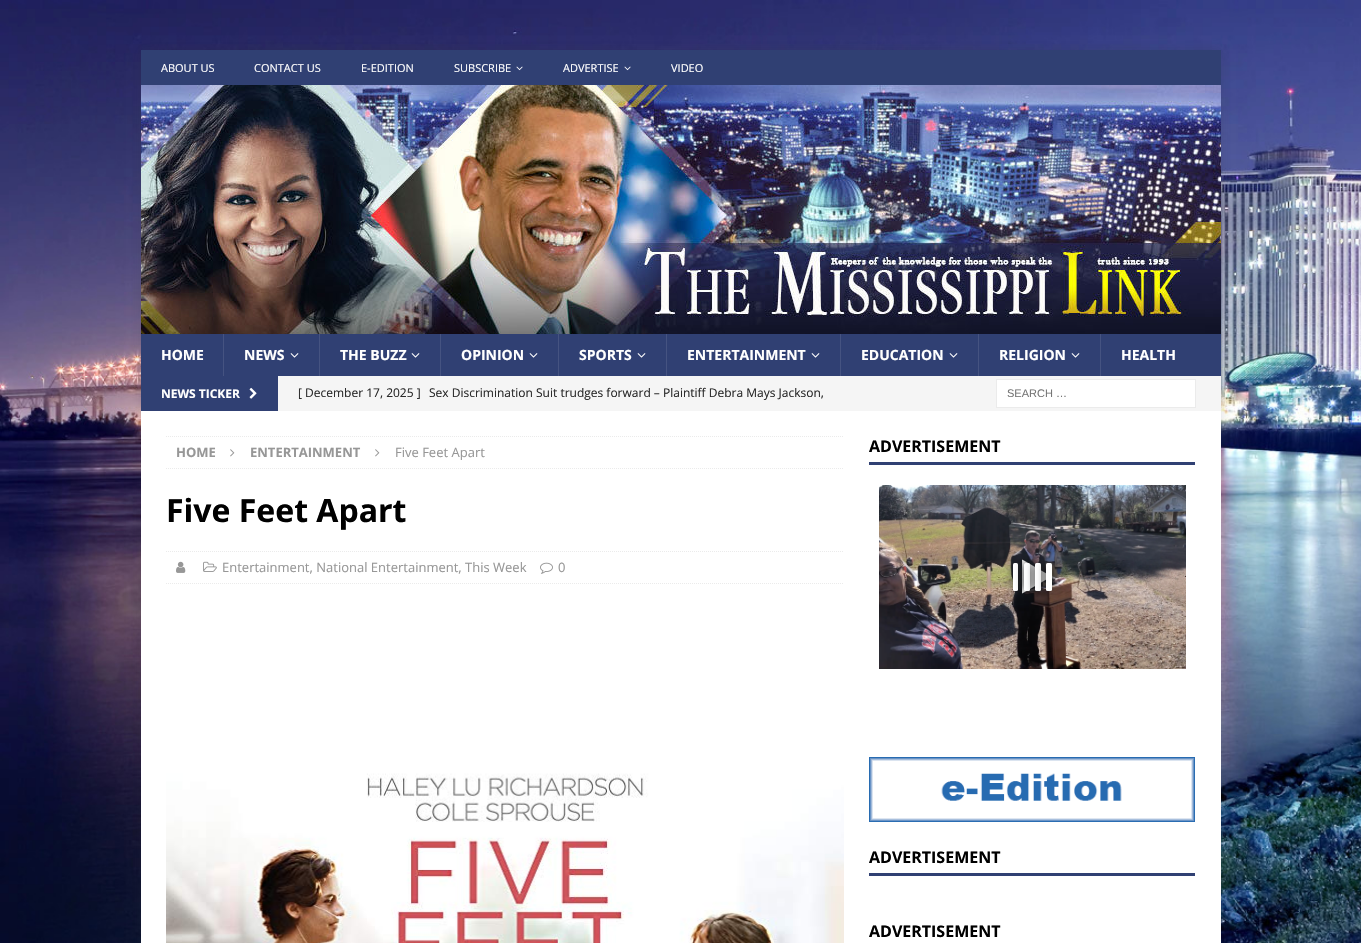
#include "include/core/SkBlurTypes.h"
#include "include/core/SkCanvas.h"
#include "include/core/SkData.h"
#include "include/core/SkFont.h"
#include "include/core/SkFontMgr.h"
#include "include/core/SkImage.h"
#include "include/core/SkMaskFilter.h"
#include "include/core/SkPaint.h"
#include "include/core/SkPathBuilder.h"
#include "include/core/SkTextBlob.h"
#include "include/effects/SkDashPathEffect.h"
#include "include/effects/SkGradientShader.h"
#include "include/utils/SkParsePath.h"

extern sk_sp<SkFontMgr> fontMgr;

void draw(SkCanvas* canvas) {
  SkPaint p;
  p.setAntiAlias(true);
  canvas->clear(SK_ColorWHITE);
  canvas->drawImageRect(SkImages::DeferredFromEncodedData(SkData::MakeFromFileName("images/1.png")), SkRect::MakeLTRB(0, 0, 1361, 943), SkSamplingOptions());
  p.setColor(SkColorSetARGB(43, 50, 50, 50));
  p.setMaskFilter(SkMaskFilter::MakeBlur(kNormal_SkBlurStyle, 5));
  canvas->drawRect(SkRect::MakeLTRB(141, 50, 1221, 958), p);
  p.setMaskFilter(nullptr);
  p.setColor(SkColorSetRGB(48, 64, 115));
  canvas->drawRect(SkRect::MakeLTRB(141, 50, 1221, 85), p);
  canvas->drawImageRect(SkImages::DeferredFromEncodedData(SkData::MakeFromFileName("images/2.png")), SkRect::MakeLTRB(516, 66, 523, 71), SkSamplingOptions());
  canvas->drawImageRect(SkImages::DeferredFromEncodedData(SkData::MakeFromFileName("images/2.png")), SkRect::MakeLTRB(624, 66, 631, 71), SkSamplingOptions());
  canvas->drawImageRect(SkImages::DeferredFromEncodedData(SkData::MakeFromFileName("images/3.png")), SkRect::MakeLTRB(141, 85, 1221, 334), SkSamplingOptions());
  canvas->drawRect(SkRect::MakeLTRB(141, 334, 1221, 376), p);
  p.setColor(SkColorSetRGB(69, 83, 129));
  canvas->drawRect(SkRect::MakeLTRB(223, 334, 224, 376), p);
  canvas->drawImageRect(SkImages::DeferredFromEncodedData(SkData::MakeFromFileName("images/4.png")), SkRect::MakeLTRB(290, 353, 299, 358), SkSamplingOptions());
  canvas->drawRect(SkRect::MakeLTRB(319, 334, 320, 376), p);
  canvas->drawImageRect(SkImages::DeferredFromEncodedData(SkData::MakeFromFileName("images/4.png")), SkRect::MakeLTRB(411, 353, 420, 358), SkSamplingOptions());
  canvas->drawRect(SkRect::MakeLTRB(440, 334, 441, 376), p);
  canvas->drawImageRect(SkImages::DeferredFromEncodedData(SkData::MakeFromFileName("images/4.png")), SkRect::MakeLTRB(529, 353, 538, 358), SkSamplingOptions());
  canvas->drawRect(SkRect::MakeLTRB(558, 334, 559, 376), p);
  canvas->drawImageRect(SkImages::DeferredFromEncodedData(SkData::MakeFromFileName("images/4.png")), SkRect::MakeLTRB(637, 353, 646, 358), SkSamplingOptions());
  canvas->drawRect(SkRect::MakeLTRB(666, 334, 667, 376), p);
  canvas->drawImageRect(SkImages::DeferredFromEncodedData(SkData::MakeFromFileName("images/4.png")), SkRect::MakeLTRB(811, 353, 820, 358), SkSamplingOptions());
  canvas->drawRect(SkRect::MakeLTRB(840, 334, 841, 376), p);
  canvas->drawImageRect(SkImages::DeferredFromEncodedData(SkData::MakeFromFileName("images/4.png")), SkRect::MakeLTRB(949, 353, 958, 358), SkSamplingOptions());
  canvas->drawRect(SkRect::MakeLTRB(978, 334, 979, 376), p);
  canvas->drawImageRect(SkImages::DeferredFromEncodedData(SkData::MakeFromFileName("images/4.png")), SkRect::MakeLTRB(1071, 353, 1080, 358), SkSamplingOptions());
  canvas->drawRect(SkRect::MakeLTRB(1100, 334, 1101, 376), p);
  p.setColor(SkColorSetRGB(245, 245, 245));
  canvas->drawRect(SkRect::MakeLTRB(278, 376, 1221, 411), p);
  p.setColor(SkColorSetRGB(48, 64, 115));
  canvas->drawRect(SkRect::MakeLTRB(141, 376, 278, 411), p);
  canvas->drawImageRect(SkImages::DeferredFromEncodedData(SkData::MakeFromFileName("images/5.png")), SkRect::MakeLTRB(249, 387, 257, 399), SkSamplingOptions());
  p.setColor(SK_ColorWHITE);
  canvas->drawRect(SkRect::MakeLTRB(996.5f, 379.5f, 1195.5f, 407.5f), p);
  p.setStyle(SkPaint::kStroke_Style);
  p.setStrokeWidth(1);
  p.setColor(SkColorSetRGB(235, 235, 235));
  canvas->drawRect(SkRect::MakeLTRB(996.5f, 379.5f, 1195.5f, 407.5f), p);
  p.setStyle(SkPaint::kFill_Style);
  p.setColor(SK_ColorWHITE);
  canvas->drawRect(SkRect::MakeLTRB(141, 411, 1221, 943), p);
  p.setStyle(SkPaint::kStroke_Style);
  p.setColor(SkColorSetRGB(235, 235, 235));
  p.setPathEffect(SkDashPathEffect::Make({{1, 1}}, 0));
  canvas->drawPath(SkPathBuilder().moveTo(166, 436.5f).lineTo(844, 436.5f).detach(), p);
  p.setPathEffect(nullptr);
  p.setPathEffect(SkDashPathEffect::Make({{1, 1}}, 0));
  canvas->drawPath(SkPathBuilder().moveTo(166, 468.5f).lineTo(844, 468.5f).detach(), p);
  p.setPathEffect(nullptr);
  canvas->drawImageRect(SkImages::DeferredFromEncodedData(SkData::MakeFromFileName("images/6.png")), SkRect::MakeLTRB(230, 449, 235, 457), SkSamplingOptions());
  canvas->drawImageRect(SkImages::DeferredFromEncodedData(SkData::MakeFromFileName("images/6.png")), SkRect::MakeLTRB(375, 449, 380, 457), SkSamplingOptions());
  p.setPathEffect(SkDashPathEffect::Make({{1, 1}}, 0));
  canvas->drawPath(SkPathBuilder().moveTo(166, 551.5f).lineTo(844, 551.5f).detach(), p);
  p.setPathEffect(nullptr);
  p.setPathEffect(SkDashPathEffect::Make({{1, 1}}, 0));
  canvas->drawPath(SkPathBuilder().moveTo(166, 583.5f).lineTo(844, 583.5f).detach(), p);
  p.setPathEffect(nullptr);
  canvas->drawImageRect(SkImages::DeferredFromEncodedData(SkData::MakeFromFileName("images/7.png")), SkRect::MakeLTRB(176, 561, 186, 573), SkSamplingOptions());
  canvas->drawImageRect(SkImages::DeferredFromEncodedData(SkData::MakeFromFileName("images/8.png")), SkRect::MakeLTRB(203, 561, 217, 572), SkSamplingOptions());
  canvas->drawImageRect(SkImages::DeferredFromEncodedData(SkData::MakeFromFileName("images/9.png")), SkRect::MakeLTRB(540, 562, 553, 574), SkSamplingOptions());
  canvas->drawImageRect(SkImages::DeferredFromEncodedData(SkData::MakeFromFileName("images/10.png")), SkRect::MakeLTRB(166, 773, 844, 943), SkSamplingOptions());
  p.setStyle(SkPaint::kFill_Style);
  p.setColor(SkColorSetRGB(48, 64, 115));
  canvas->drawRect(SkRect::MakeLTRB(869, 462, 1195, 465), p);
  canvas->drawImageRect(SkImages::DeferredFromEncodedData(SkData::MakeFromFileName("images/11.png")), SkRect::MakeLTRB(879, 485, 1186, 669), SkSamplingOptions());
  canvas->drawImageRect(SkImages::DeferredFromEncodedData(SkData::MakeFromFileName("images/12.png")), SkRect::MakeLTRB(1020, 559, 1054, 594), SkSamplingOptions());
  p.setColor(SkColorSetRGB(34, 34, 34));
  p.setMaskFilter(SkMaskFilter::MakeBlur(kNormal_SkBlurStyle, 4));
  canvas->drawRoundRect(SkRect::MakeLTRB(1013, 563, 1018, 591), 1.5f, 1.5f, p);
  p.setMaskFilter(nullptr);
  p.setColor(SK_ColorWHITE);
  canvas->drawRoundRect(SkRect::MakeLTRB(1013, 563, 1018, 591), 1.5f, 1.5f, p);
  p.setColor(SkColorSetRGB(34, 34, 34));
  p.setMaskFilter(SkMaskFilter::MakeBlur(kNormal_SkBlurStyle, 4));
  canvas->drawRoundRect(SkRect::MakeLTRB(1024, 563, 1030, 591), 1.5f, 1.5f, p);
  p.setMaskFilter(nullptr);
  p.setColor(SK_ColorWHITE);
  canvas->drawRoundRect(SkRect::MakeLTRB(1024, 563, 1030, 591), 1.5f, 1.5f, p);
  p.setColor(SkColorSetRGB(34, 34, 34));
  p.setMaskFilter(SkMaskFilter::MakeBlur(kNormal_SkBlurStyle, 4));
  canvas->drawRoundRect(SkRect::MakeLTRB(1035, 563, 1041, 591), 1.5f, 1.5f, p);
  p.setMaskFilter(nullptr);
  p.setColor(SK_ColorWHITE);
  canvas->drawRoundRect(SkRect::MakeLTRB(1035, 563, 1041, 591), 1.5f, 1.5f, p);
  p.setColor(SkColorSetRGB(34, 34, 34));
  p.setMaskFilter(SkMaskFilter::MakeBlur(kNormal_SkBlurStyle, 4));
  canvas->drawRoundRect(SkRect::MakeLTRB(1046, 563, 1052, 591), 1.5f, 1.5f, p);
  p.setMaskFilter(nullptr);
  p.setColor(SK_ColorWHITE);
  canvas->drawRoundRect(SkRect::MakeLTRB(1046, 563, 1052, 591), 1.5f, 1.5f, p);
  canvas->drawImageRect(SkImages::DeferredFromEncodedData(SkData::MakeFromFileName("images/13.png")), SkRect::MakeLTRB(869, 757, 1195, 822), SkSamplingOptions());
  p.setColor(SkColorSetRGB(48, 64, 115));
  canvas->drawRect(SkRect::MakeLTRB(869, 873, 1195, 876), p);
  SkFont font1(fontMgr->matchFamilyStyle("Open Sans", SkFontStyle::Normal()), 11);
  font1.setSubpixel(true);
  p.setColor(SK_ColorWHITE);
  canvas->drawString("ABOUT US", 161, 72, font1, p);
  canvas->drawString("CONTACT US", 254, 72, font1, p);
  canvas->drawString("E-EDITION", 361, 72, font1, p);
  canvas->drawString("SUBSCRIBE", 454, 72, font1, p);
  canvas->drawString("ADVERTISE", 563, 72, font1, p);
  canvas->drawString("VIDEO", 671, 72, font1, p);
  SkFont font2(fontMgr->matchFamilyStyle("Open Sans", SkFontStyle::Bold()), 14);
  font2.setSubpixel(true);
  canvas->drawString("HOME", 161, 360, font2, p);
  canvas->drawString("NEWS", 244, 360, font2, p);
  canvas->drawString("THE BUZZ", 340, 360, font2, p);
  canvas->drawString("OPINION", 461, 360, font2, p);
  canvas->drawString("SPORTS", 579, 360, font2, p);
  canvas->drawString("ENTERTAINMENT", 687, 360, font2, p);
  canvas->drawString("EDUCATION", 861, 360, font2, p);
  canvas->drawString("RELIGION", 999, 360, font2, p);
  canvas->drawString("HEALTH", 1121, 360, font2, p);
  SkFont font3(fontMgr->matchFamilyStyle("Open Sans", SkFontStyle::Bold()), 12);
  font3.setSubpixel(true);
  canvas->drawString("NEWS TICKER", 161, 398, font3, p);
  SkFont font4(fontMgr->matchFamilyStyle("Open Sans", SkFontStyle::Normal()), 12);
  font4.setSubpixel(true);
  p.setColor(SkColorSetRGB(42, 42, 42));
  canvas->drawString("[ December 17, 2025 ]", 298, 397, font4, p);
  canvas->drawString("Sex Discrimination Suit trudges forward – Plaintiff Debra Mays Jackson,", 429, 397, font4, p);
  SkFont font5(fontMgr->matchFamilyStyle("Liberation Sans", SkFontStyle::Normal()), 11);
  font5.setSubpixel(true);
  p.setColor(SkColorSetRGB(117, 117, 117));
  canvas->drawString("SEARCH …", 1007, 397, font5, p);
  SkFont font6(fontMgr->matchFamilyStyle("Open Sans", SkFontStyle::Bold()), 13);
  font6.setSubpixel(true);
  p.setColor(SkColorSetRGB(151, 151, 151));
  canvas->drawString("HOME", 176, 457, font6, p);
  canvas->drawString("ENTERTAINMENT", 250, 457, font6, p);
  SkFont font7(fontMgr->matchFamilyStyle("Open Sans", SkFontStyle::Normal()), 13);
  font7.setSubpixel(true);
  canvas->drawString("Five Feet Apart", 395, 457, font7, p);
  SkFont font8(fontMgr->matchFamilyStyle("Open Sans", SkFontStyle::Bold()), 32);
  font8.setSubpixel(true);
  p.setColor(SK_ColorBLACK);
  canvas->drawString("Five Feet Apart", 166, 522, font8, p);
  p.setColor(SkColorSetRGB(151, 151, 151));
  canvas->drawString("Entertainment, National Entertainment, This Week", 222, 572, font7, p);
  canvas->drawString("0", 558, 572, font7, p);
  SkFont font9(fontMgr->matchFamilyStyle("Open Sans", SkFontStyle::Bold()), 16);
  font9.setSubpixel(true);
  p.setColor(SK_ColorBLACK);
  canvas->drawString("ADVERTISEMENT", 869, 452, font9, p);
  canvas->drawString("ADVERTISEMENT", 869, 863, font9, p);
  canvas->drawString("ADVERTISEMENT", 869, 937, font9, p);
}
